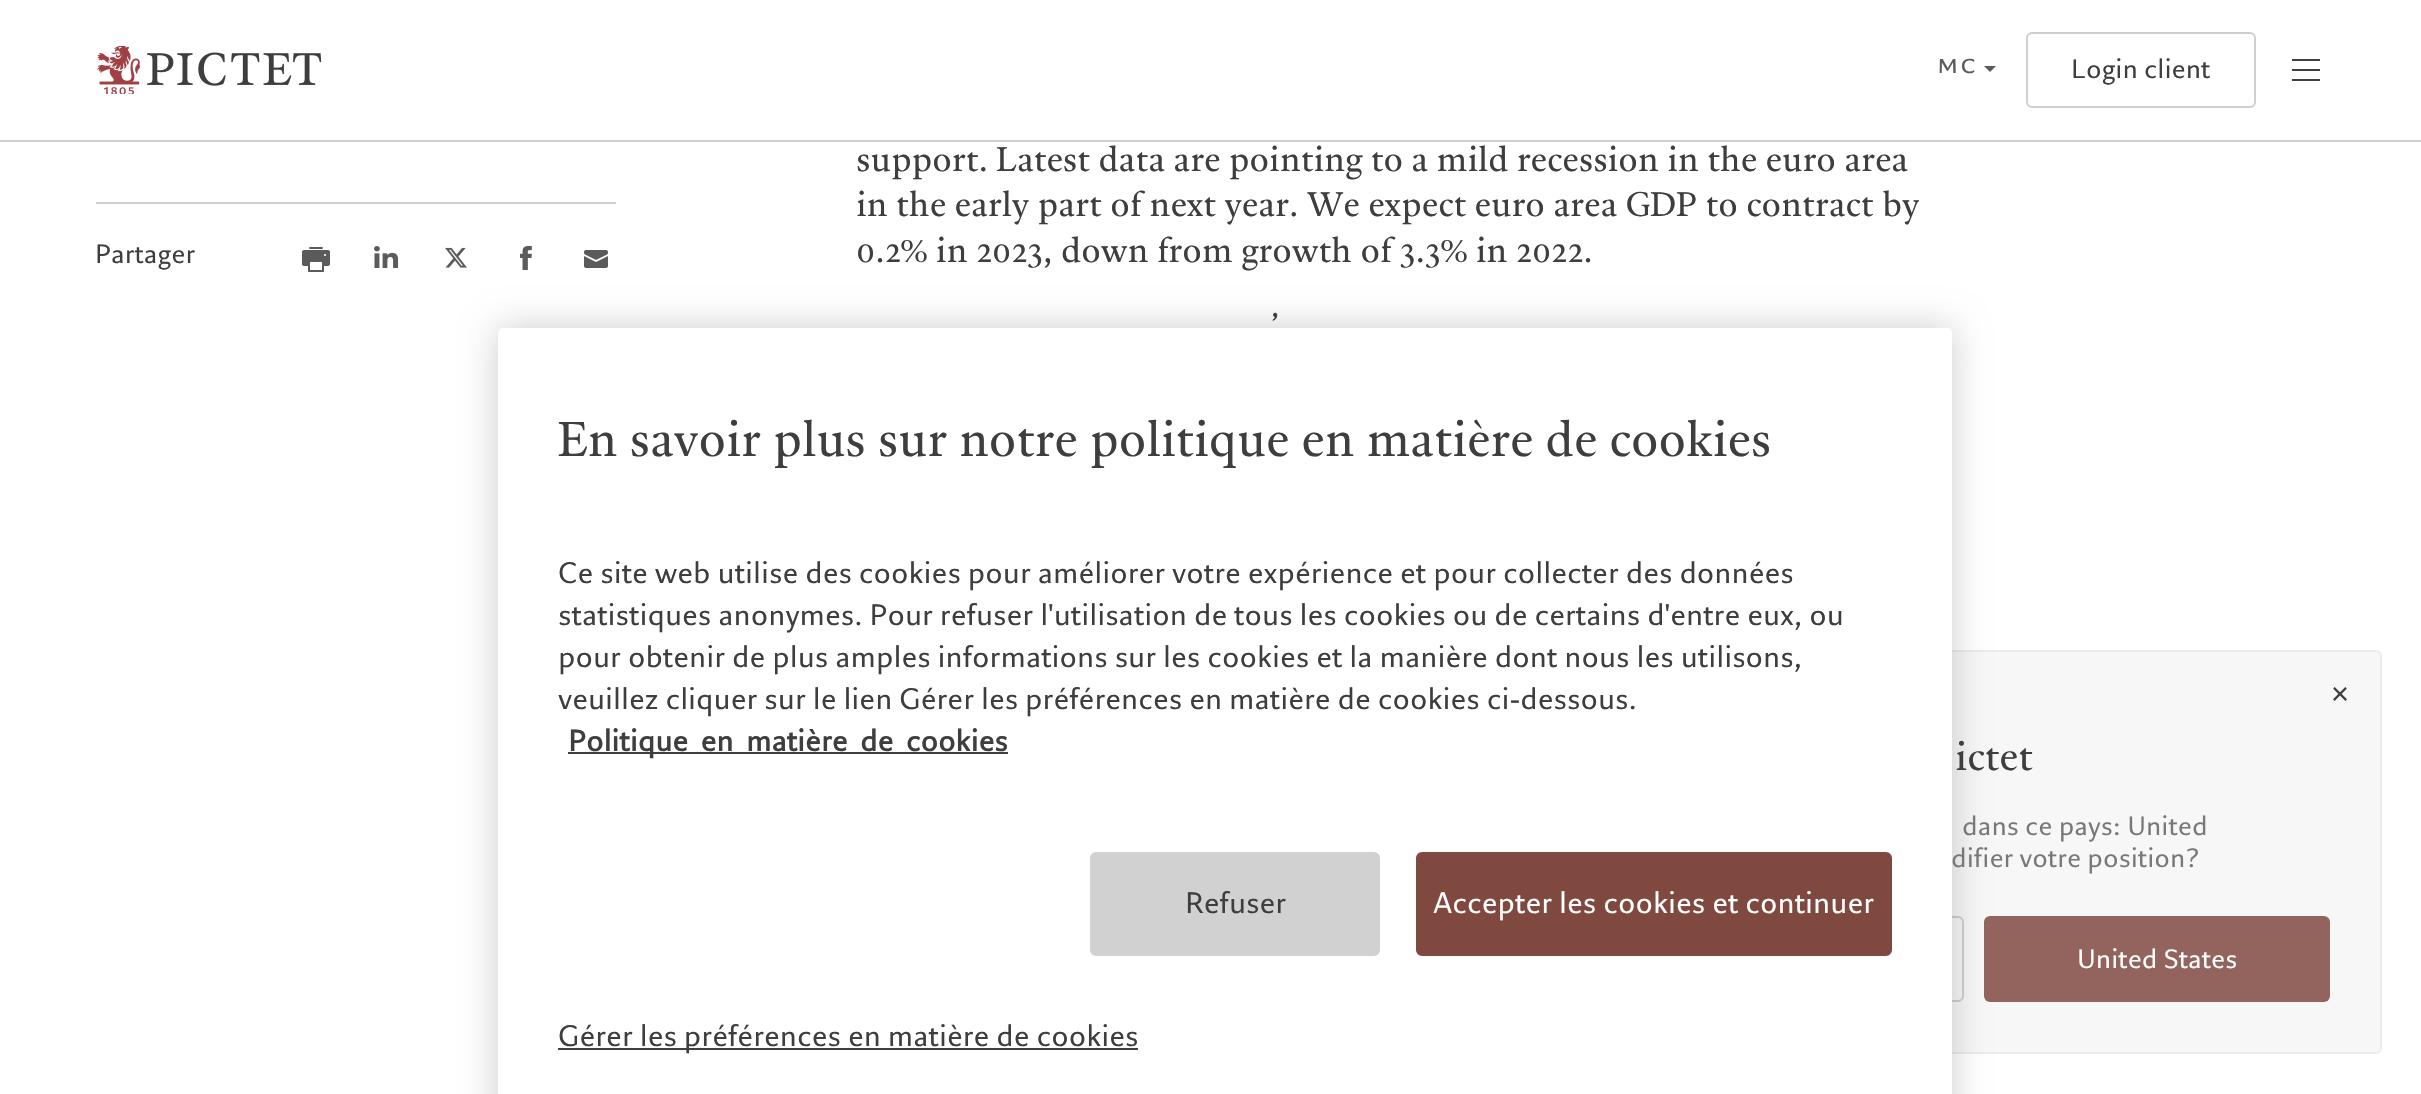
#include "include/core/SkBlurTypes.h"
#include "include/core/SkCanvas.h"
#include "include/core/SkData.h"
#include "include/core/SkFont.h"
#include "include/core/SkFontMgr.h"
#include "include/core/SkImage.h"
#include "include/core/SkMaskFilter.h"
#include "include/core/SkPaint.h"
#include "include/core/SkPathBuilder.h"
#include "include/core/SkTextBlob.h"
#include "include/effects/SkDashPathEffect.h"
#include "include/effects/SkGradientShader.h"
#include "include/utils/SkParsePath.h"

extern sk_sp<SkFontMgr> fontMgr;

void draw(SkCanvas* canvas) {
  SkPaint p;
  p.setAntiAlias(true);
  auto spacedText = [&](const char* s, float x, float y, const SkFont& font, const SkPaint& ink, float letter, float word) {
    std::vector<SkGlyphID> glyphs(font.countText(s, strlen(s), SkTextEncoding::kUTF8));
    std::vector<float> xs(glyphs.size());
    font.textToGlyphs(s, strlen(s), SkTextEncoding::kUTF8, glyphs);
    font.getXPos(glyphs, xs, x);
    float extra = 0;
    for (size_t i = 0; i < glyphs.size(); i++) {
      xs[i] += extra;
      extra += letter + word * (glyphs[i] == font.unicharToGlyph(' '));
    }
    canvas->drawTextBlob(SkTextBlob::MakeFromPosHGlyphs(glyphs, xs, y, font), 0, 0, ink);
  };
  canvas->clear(SK_ColorWHITE);
  p.setColor(SkColorSetRGB(207, 207, 207));
  canvas->drawRect(SkRect::MakeLTRB(0, 140, 2421, 142), p);
  canvas->drawImageRect(SkImages::DeferredFromEncodedData(SkData::MakeFromFileName("images/1.png")), SkRect::MakeLTRB(97, 46, 140, 94), SkSamplingOptions());
  canvas->drawImageRect(SkImages::DeferredFromEncodedData(SkData::MakeFromFileName("images/2.png")), SkRect::MakeLTRB(147, 52, 322, 86), SkSamplingOptions());
  p.setColor(SkColorSetRGB(91, 91, 91));
  canvas->drawPath(SkPathBuilder().moveTo(1984, 66).lineTo(1996, 66).lineTo(1990, 72).close().detach(), p);
  p.setStyle(SkPaint::kStroke_Style);
  p.setStrokeWidth(2);
  p.setColor(SkColorSetRGB(207, 207, 207));
  canvas->drawRoundRect(SkRect::MakeLTRB(2027, 33, 2255, 107), 5, 5, p);
  p.setStyle(SkPaint::kFill_Style);
  p.setColor(SkColorSetRGB(62, 62, 62));
  canvas->drawRect(SkRect::MakeLTRB(2292, 59, 2320, 61), p);
  canvas->drawRect(SkRect::MakeLTRB(2292, 69, 2320, 71), p);
  canvas->drawRect(SkRect::MakeLTRB(2292, 79, 2320, 81), p);
  p.setColor(SkColorSetRGB(207, 207, 207));
  canvas->drawRect(SkRect::MakeLTRB(96, 202, 616, 204), p);
  canvas->drawImageRect(SkImages::DeferredFromEncodedData(SkData::MakeFromFileName("images/3.png")), SkRect::MakeLTRB(302, 247, 330, 272), SkSamplingOptions());
  canvas->drawImageRect(SkImages::DeferredFromEncodedData(SkData::MakeFromFileName("images/4.png")), SkRect::MakeLTRB(374, 246, 398, 268), SkSamplingOptions());
  canvas->drawImageRect(SkImages::DeferredFromEncodedData(SkData::MakeFromFileName("images/5.png")), SkRect::MakeLTRB(445, 247, 467, 268), SkSamplingOptions());
  canvas->drawImageRect(SkImages::DeferredFromEncodedData(SkData::MakeFromFileName("images/6.png")), SkRect::MakeLTRB(520, 246, 532, 270), SkSamplingOptions());
  canvas->drawImageRect(SkImages::DeferredFromEncodedData(SkData::MakeFromFileName("images/7.png")), SkRect::MakeLTRB(584, 250, 608, 268), SkSamplingOptions());
  p.setColor(SkColorSetRGB(247, 247, 247));
  canvas->drawRoundRect(SkRect::MakeLTRB(1583, 651, 2381, 1053), 5, 5, p);
  p.setStyle(SkPaint::kStroke_Style);
  p.setColor(SkColorSetRGB(236, 236, 236));
  canvas->drawRoundRect(SkRect::MakeLTRB(1583, 651, 2381, 1053), 5, 5, p);
  p.setColor(SkColorSetRGB(207, 207, 207));
  canvas->drawRoundRect(SkRect::MakeLTRB(1635, 917, 1963, 1001), 5, 5, p);
  p.setStyle(SkPaint::kFill_Style);
  p.setColor(SkColorSetRGB(147, 100, 93));
  canvas->drawRoundRect(SkRect::MakeLTRB(1984, 916, 2330, 1002), 6, 6, p);
  p.setColor(SkColorSetARGB(51, 0, 0, 0));
  p.setMaskFilter(SkMaskFilter::MakeBlur(kNormal_SkBlurStyle, 18));
  canvas->drawRoundRect(SkRect::MakeLTRB(498, 328, 1952, 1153), 5, 5, p);
  p.setMaskFilter(nullptr);
  p.setColor(SK_ColorWHITE);
  canvas->drawRoundRect(SkRect::MakeLTRB(498, 328, 1952, 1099), 5, 5, p);
  p.setColor(SkColorSetRGB(62, 62, 62));
  canvas->drawRect(SkRect::MakeLTRB(568, 752, 1008, 754), p);
  p.setColor(SkColorSetRGB(209, 209, 209));
  canvas->drawRoundRect(SkRect::MakeLTRB(1091, 853, 1379, 955), 5, 5, p);
  p.setStyle(SkPaint::kStroke_Style);
  canvas->drawRoundRect(SkRect::MakeLTRB(1091, 853, 1379, 955), 5, 5, p);
  p.setStyle(SkPaint::kFill_Style);
  p.setColor(SkColorSetRGB(128, 73, 64));
  canvas->drawRoundRect(SkRect::MakeLTRB(1417, 853, 1891, 955), 5, 5, p);
  p.setStyle(SkPaint::kStroke_Style);
  canvas->drawRoundRect(SkRect::MakeLTRB(1417, 853, 1891, 955), 5, 5, p);
  p.setStyle(SkPaint::kFill_Style);
  p.setColor(SkColorSetRGB(62, 62, 62));
  canvas->drawRect(SkRect::MakeLTRB(558, 1048, 1138, 1050), p);
  canvas->drawImageRect(SkImages::DeferredFromEncodedData(SkData::MakeFromFileName("images/8.png")), SkRect::MakeLTRB(2333, 687, 2347, 701), SkSamplingOptions());
  SkFont font1(fontMgr->matchFamilyStyle("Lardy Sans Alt", SkFontStyle::Normal()), 25.1f);
  font1.setSubpixel(true);
  p.setColor(SkColorSetRGB(91, 91, 91));
  canvas->drawString("mc", 1936, 73, font1, p);
  SkFont font2(fontMgr->matchFamilyStyle("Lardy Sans", SkFontStyle::Normal()), 25.1f);
  font2.setSubpixel(true);
  p.setColor(SkColorSetRGB(62, 62, 62));
  canvas->drawString("Login client", 2071, 78, font2, p);
  canvas->drawString("Partager", 95, 263, font2, p);
  SkFont font3(fontMgr->matchFamilyStyle("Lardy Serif", SkFontStyle::Normal()), 32.25f);
  font3.setSubpixel(true);
  spacedText("support. Latest data are pointing to a mild recession in the euro area", 856, 171, font3, p, 0, -0.3f);
  spacedText("in the early part of next year. We expect euro area GDP to contract by", 856, 216, font3, p, 0, -0.25f);
  spacedText("0.2% in 2023, down from growth of 3.3% in 2022.", 856, 262, font3, p, 0, -0.25f);
  spacedText("’", 1271, 337, font3, p, 0, -1);
  SkFont font4(fontMgr->matchFamilyStyle("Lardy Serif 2", SkFontStyle::Normal()), 46);
  font4.setSubpixel(true);
  spacedText("En savoir plus sur notre politique en matière de cookies", 558, 456, font4, p, 0, -0.25f);
  SkFont font5(fontMgr->matchFamilyStyle("Lardy Sans", SkFontStyle::Normal()), 28);
  font5.setSubpixel(true);
  canvas->drawString("Ce site web utilise des cookies pour améliorer votre expérience et pour collecter des données", 558, 583, font5, p);
  canvas->drawString("statistiques anonymes. Pour refuser l'utilisation de tous les cookies ou de certains d'entre eux, ou", 558, 625, font5, p);
  canvas->drawString("pour obtenir de plus amples informations sur les cookies et la manière dont nous les utilisons,", 558, 667, font5, p);
  canvas->drawString("veuillez cliquer sur le lien Gérer les préférences en matière de cookies ci-dessous.", 558, 709, font5, p);
  SkFont font6(fontMgr->matchFamilyStyle("Lardy Sans", SkFontStyle::Bold()), 28);
  font6.setSubpixel(true);
  spacedText("Politique en matière de cookies", 568, 751, font6, p, 0, 5.5f);
  canvas->drawString("Refuser", 1185, 913, font5, p);
  p.setColor(SK_ColorWHITE);
  canvas->drawString("Accepter les cookies et continuer", 1433, 913, font5, p);
  p.setColor(SkColorSetRGB(62, 62, 62));
  canvas->drawString("Gérer les préférences en matière de cookies", 558, 1046, font5, p);
  SkFont font7(fontMgr->matchFamilyStyle("Lardy Serif", SkFontStyle::Normal()), 37);
  font7.setSubpixel(true);
  spacedText("ictet", 1955, 770, font7, p, 0, 5);
  p.setColor(SkColorSetRGB(120, 120, 120));
  canvas->drawString("dans ce pays: United", 1962, 835, font2, p);
  canvas->drawString("difier votre position?", 1951, 867, font2, p);
  p.setColor(SK_ColorWHITE);
  canvas->drawString("United States", 2077, 968, font2, p);
}
